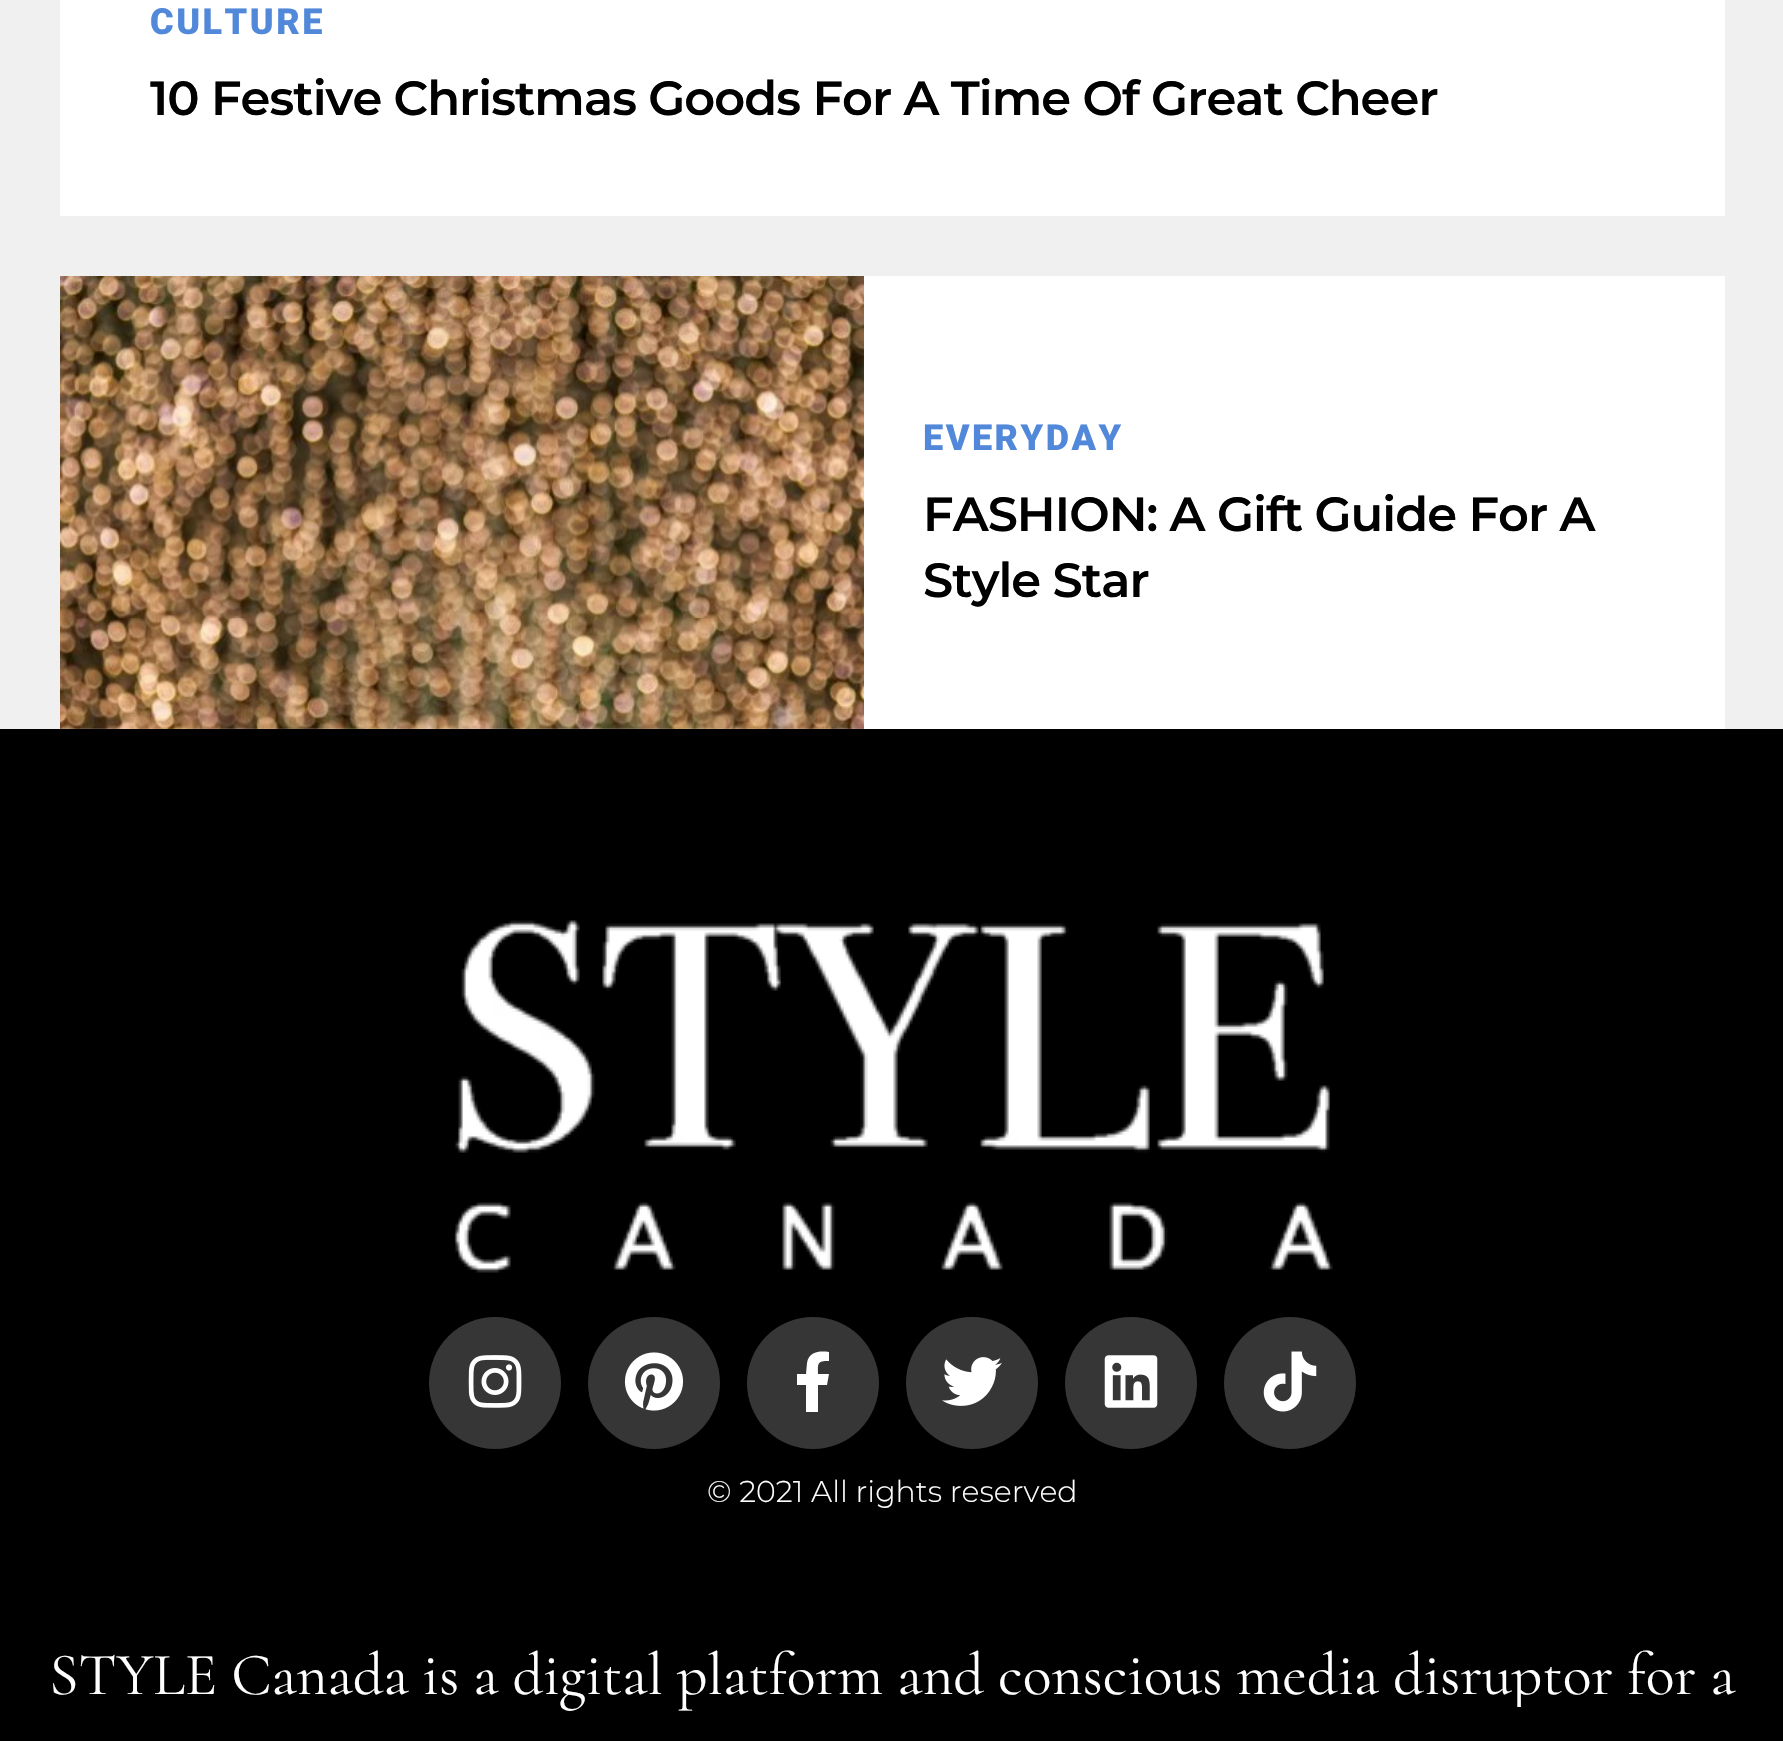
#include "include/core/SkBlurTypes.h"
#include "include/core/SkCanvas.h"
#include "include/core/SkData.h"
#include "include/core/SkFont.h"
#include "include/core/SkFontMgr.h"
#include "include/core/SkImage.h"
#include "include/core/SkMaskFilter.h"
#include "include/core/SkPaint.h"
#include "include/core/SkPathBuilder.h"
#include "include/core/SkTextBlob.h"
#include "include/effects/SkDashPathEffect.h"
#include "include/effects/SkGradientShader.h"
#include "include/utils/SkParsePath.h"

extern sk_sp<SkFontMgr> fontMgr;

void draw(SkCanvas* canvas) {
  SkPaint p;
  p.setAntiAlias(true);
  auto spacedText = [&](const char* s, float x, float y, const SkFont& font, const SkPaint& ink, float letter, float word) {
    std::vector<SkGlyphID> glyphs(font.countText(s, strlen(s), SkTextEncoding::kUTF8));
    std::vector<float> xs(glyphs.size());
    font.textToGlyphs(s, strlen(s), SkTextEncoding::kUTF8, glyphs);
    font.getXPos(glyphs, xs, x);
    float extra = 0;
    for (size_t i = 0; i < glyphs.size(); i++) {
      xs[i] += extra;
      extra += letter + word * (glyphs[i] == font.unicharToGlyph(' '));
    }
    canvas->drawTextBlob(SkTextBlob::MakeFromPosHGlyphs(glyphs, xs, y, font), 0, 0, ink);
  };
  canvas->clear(SkColorSetRGB(240, 240, 240));
  p.setColor(SK_ColorWHITE);
  canvas->drawRect(SkRect::MakeLTRB(60, 0, 1725, 216), p);
  canvas->drawRect(SkRect::MakeLTRB(60, 276, 1725, 729), p);
  canvas->drawImageRect(SkImages::DeferredFromEncodedData(SkData::MakeFromFileName("images/1.png")), SkRect::MakeLTRB(60, 276, 864, 729), SkSamplingOptions());
  p.setColor(SK_ColorBLACK);
  canvas->drawRect(SkRect::MakeLTRB(0, 729, 1783, 1741), p);
  canvas->drawImageRect(SkImages::DeferredFromEncodedData(SkData::MakeFromFileName("images/2.png")), SkRect::MakeLTRB(454, 920, 1333, 1273), SkSamplingOptions());
  p.setColor(SkColorSetRGB(54, 54, 54));
  canvas->drawCircle(495, 1383, 66, p);
  canvas->drawImageRect(SkImages::DeferredFromEncodedData(SkData::MakeFromFileName("images/3.png")), SkRect::MakeLTRB(468, 1355, 522, 1408), SkSamplingOptions());
  canvas->drawCircle(654, 1383, 66, p);
  canvas->drawImageRect(SkImages::DeferredFromEncodedData(SkData::MakeFromFileName("images/4.png")), SkRect::MakeLTRB(624, 1352, 684, 1411), SkSamplingOptions());
  canvas->drawCircle(813, 1383, 66, p);
  p.setColor(SK_ColorWHITE);
  canvas->drawPath(SkPathBuilder().moveTo(827, 1385).lineTo(818, 1385).lineTo(818, 1412).lineTo(806, 1412).lineTo(806, 1385).lineTo(797, 1385).lineTo(797, 1374).lineTo(806, 1374).lineTo(807, 1363).cubicTo(809, 1351, 820, 1351, 829, 1352).lineTo(829, 1361).cubicTo(817, 1361, 818, 1363, 818, 1374).lineTo(829, 1374).close().detach(), p);
  p.setColor(SkColorSetRGB(54, 54, 54));
  canvas->drawCircle(972, 1383, 66, p);
  canvas->drawImageRect(SkImages::DeferredFromEncodedData(SkData::MakeFromFileName("images/5.png")), SkRect::MakeLTRB(942, 1357, 1002, 1406), SkSamplingOptions());
  canvas->drawCircle(1131, 1383, 66, p);
  canvas->drawImageRect(SkImages::DeferredFromEncodedData(SkData::MakeFromFileName("images/6.png")), SkRect::MakeLTRB(1104, 1355, 1158, 1408), SkSamplingOptions());
  canvas->drawCircle(1290, 1383, 66, p);
  canvas->drawImageRect(SkImages::DeferredFromEncodedData(SkData::MakeFromFileName("images/7.png")), SkRect::MakeLTRB(1263, 1351, 1317, 1412), SkSamplingOptions());
  SkFont font1(fontMgr->matchFamilyStyle("Roboto", SkFontStyle(900, SkFontStyle::kNormal_Width, SkFontStyle::kUpright_Slant)), 36);
  font1.setSubpixel(true);
  p.setColor(SkColorSetRGB(81, 136, 217));
  spacedText("CULTURE", 150, 34, font1, p, 2.5f, 0);
  SkFont font2(fontMgr->matchFamilyStyle("Montserrat", SkFontStyle(600, SkFontStyle::kNormal_Width, SkFontStyle::kUpright_Slant)), 48);
  font2.setSubpixel(true);
  p.setColor(SK_ColorBLACK);
  spacedText("10 Festive Christmas Goods For A Time Of Great Cheer", 150, 115, font2, p, -0.95f, 0);
  p.setColor(SkColorSetRGB(81, 136, 217));
  spacedText("EVERYDAY", 923, 450, font1, p, 2.5f, 0);
  p.setColor(SK_ColorBLACK);
  spacedText("FASHION: A Gift Guide For A", 923, 531, font2, p, -0.95f, 0);
  spacedText("Style Star", 923, 597, font2, p, -0.95f, 0);
  SkFont font3(fontMgr->matchFamilyStyle("Montserrat", SkFontStyle(300, SkFontStyle::kNormal_Width, SkFontStyle::kUpright_Slant)), 30);
  font3.setSubpixel(true);
  p.setColor(SK_ColorWHITE);
  canvas->drawString("© 2021 All rights reserved", 707, 1502, font3, p);
  SkFont font4(fontMgr->matchFamilyStyle("Cormorant", SkFontStyle::Normal()), 60);
  font4.setSubpixel(true);
  canvas->drawString("STYLE Canada is a digital platform and conscious media disruptor for a", 49, 1694, font4, p);
  p.setColor(SK_ColorBLACK);
  canvas->drawRect(SkRect::MakeLTRB(1513, 1707, 1528, 1711), p);
}
